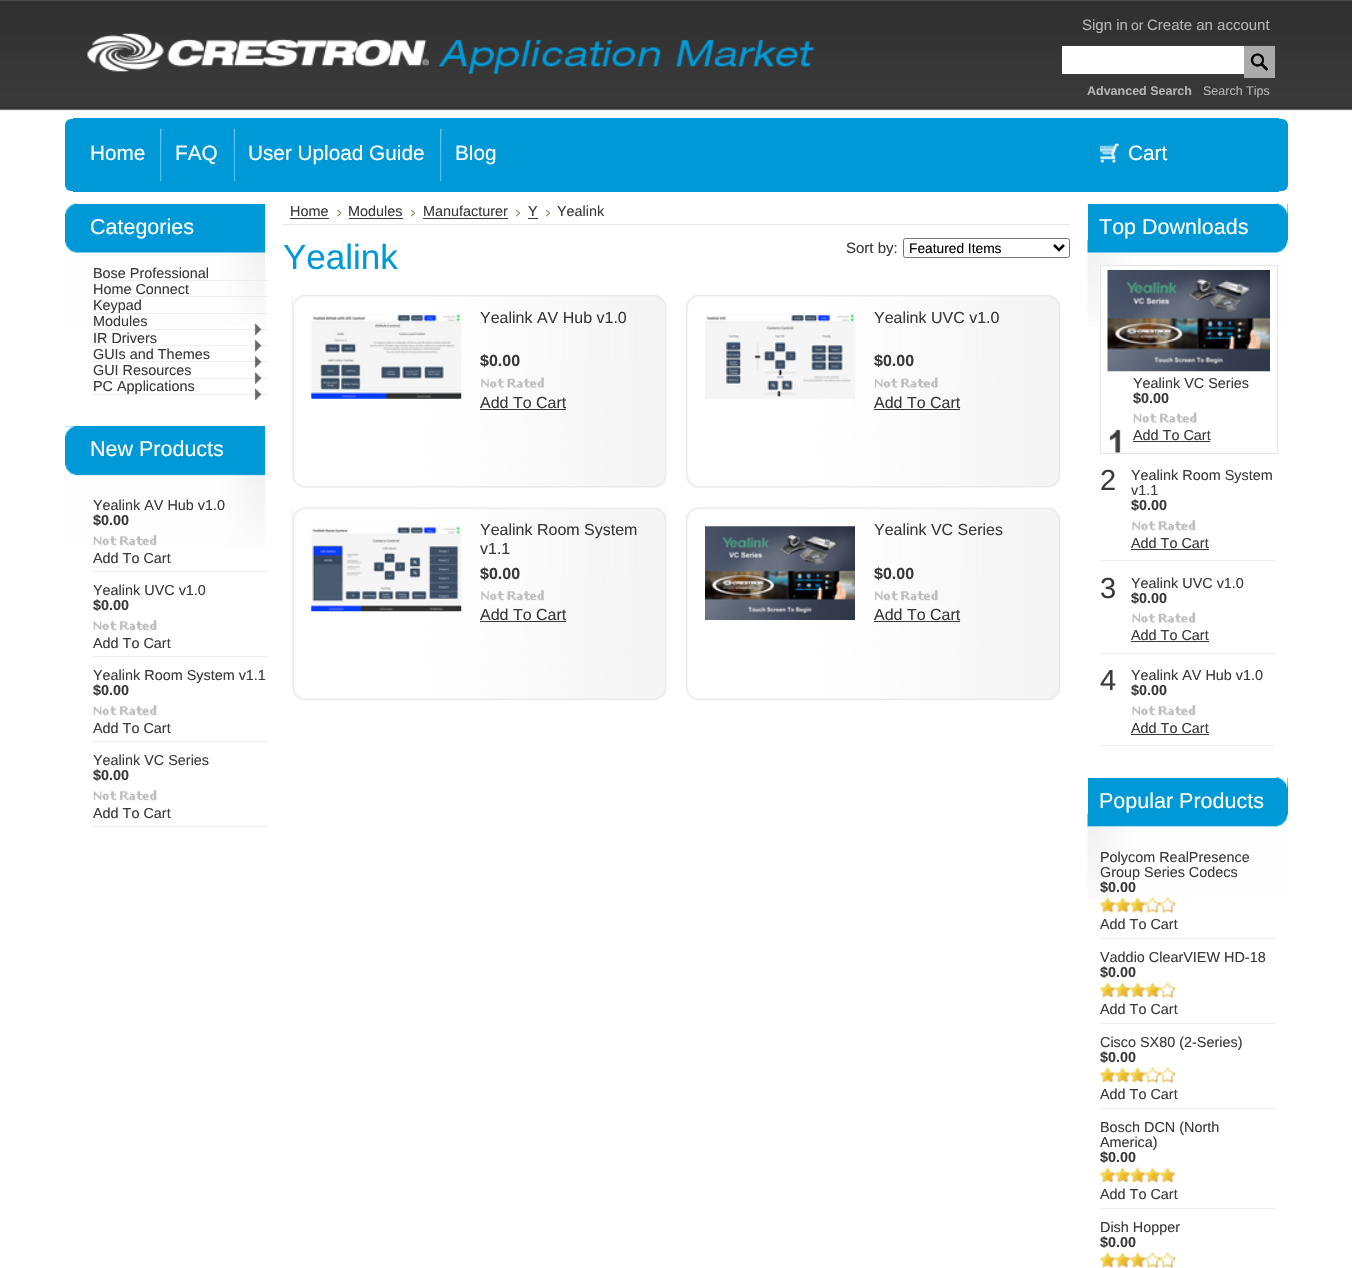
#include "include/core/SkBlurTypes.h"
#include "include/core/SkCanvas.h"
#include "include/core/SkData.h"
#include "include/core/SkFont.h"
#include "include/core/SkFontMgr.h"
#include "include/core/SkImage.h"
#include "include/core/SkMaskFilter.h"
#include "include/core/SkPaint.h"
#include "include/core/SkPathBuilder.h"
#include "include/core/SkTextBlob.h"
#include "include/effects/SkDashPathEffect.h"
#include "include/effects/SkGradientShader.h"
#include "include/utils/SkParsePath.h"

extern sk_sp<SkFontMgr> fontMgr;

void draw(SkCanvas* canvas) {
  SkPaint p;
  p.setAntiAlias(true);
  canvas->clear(SK_ColorWHITE);
  canvas->drawImageRect(SkImages::DeferredFromEncodedData(SkData::MakeFromFileName("images/1.png")), SkRect::MakeLTRB(0, 0, 1352, 111), SkSamplingOptions());
  canvas->drawImageRect(SkImages::DeferredFromEncodedData(SkData::MakeFromFileName("images/2.png")), SkRect::MakeLTRB(87, 33, 814, 74), SkSamplingOptions());
  p.setColor(SK_ColorWHITE);
  canvas->drawRect(SkRect::MakeLTRB(1062, 46, 1244, 74), p);
  p.setStyle(SkPaint::kStroke_Style);
  p.setStrokeWidth(1);
  p.setColor(SkColorSetRGB(58, 58, 58));
  canvas->drawRect(SkRect::MakeLTRB(1061.5f, 45.5f, 1275.5f, 74.5f), p);
  p.setStyle(SkPaint::kFill_Style);
  p.setColor(SkColorSetRGB(170, 170, 170));
  canvas->drawRect(SkRect::MakeLTRB(1244, 46, 1275, 78), p);
  canvas->drawImageRect(SkImages::DeferredFromEncodedData(SkData::MakeFromFileName("images/3.png")), SkRect::MakeLTRB(1250, 53, 1268, 71), SkSamplingOptions());
  p.setColor(SkColorSetRGB(0, 153, 216));
  canvas->drawRoundRect(SkRect::MakeLTRB(65, 119, 1288, 191), 6, 6, p);
  canvas->drawRect(SkRect::MakeLTRB(73, 118, 1279, 192), p);
  canvas->drawImageRect(SkImages::DeferredFromEncodedData(SkData::MakeFromFileName("images/4.png")), SkRect::MakeLTRB(160, 128, 162, 182), SkSamplingOptions());
  canvas->drawImageRect(SkImages::DeferredFromEncodedData(SkData::MakeFromFileName("images/5.png")), SkRect::MakeLTRB(233, 128, 236, 182), SkSamplingOptions());
  canvas->drawImageRect(SkImages::DeferredFromEncodedData(SkData::MakeFromFileName("images/4.png")), SkRect::MakeLTRB(440, 128, 442, 182), SkSamplingOptions());
  canvas->drawImageRect(SkImages::DeferredFromEncodedData(SkData::MakeFromFileName("images/6.png")), SkRect::MakeLTRB(1099, 143, 1119, 163), SkSamplingOptions());
  canvas->drawRect(SkRect::MakeLTRB(65, 204, 265, 240), p);
  canvas->drawImageRect(SkImages::DeferredFromEncodedData(SkData::MakeFromFileName("images/7.png")), SkRect::MakeLTRB(65, 203, 77, 214), SkSamplingOptions());
  canvas->drawImageRect(SkImages::DeferredFromEncodedData(SkData::MakeFromFileName("images/8.png")), SkRect::MakeLTRB(65, 240, 265, 326), SkSamplingOptions());
  p.setColor(SkColorSetRGB(238, 238, 238));
  canvas->drawRect(SkRect::MakeLTRB(93, 280, 268, 281), p);
  canvas->drawRect(SkRect::MakeLTRB(93, 296, 268, 297), p);
  canvas->drawRect(SkRect::MakeLTRB(93, 313, 268, 314), p);
  canvas->drawRect(SkRect::MakeLTRB(93, 329, 268, 330), p);
  canvas->drawImageRect(SkImages::DeferredFromEncodedData(SkData::MakeFromFileName("images/9.png")), SkRect::MakeLTRB(254, 323, 262, 335), SkSamplingOptions());
  canvas->drawRect(SkRect::MakeLTRB(93, 345, 268, 346), p);
  canvas->drawImageRect(SkImages::DeferredFromEncodedData(SkData::MakeFromFileName("images/10.png")), SkRect::MakeLTRB(254, 339, 262, 352), SkSamplingOptions());
  canvas->drawRect(SkRect::MakeLTRB(93, 361, 268, 362), p);
  canvas->drawImageRect(SkImages::DeferredFromEncodedData(SkData::MakeFromFileName("images/11.png")), SkRect::MakeLTRB(254, 356, 262, 368), SkSamplingOptions());
  canvas->drawRect(SkRect::MakeLTRB(93, 378, 268, 379), p);
  canvas->drawImageRect(SkImages::DeferredFromEncodedData(SkData::MakeFromFileName("images/12.png")), SkRect::MakeLTRB(254, 372, 262, 384), SkSamplingOptions());
  canvas->drawRect(SkRect::MakeLTRB(93, 394, 268, 395), p);
  canvas->drawImageRect(SkImages::DeferredFromEncodedData(SkData::MakeFromFileName("images/13.png")), SkRect::MakeLTRB(254, 388, 262, 400), SkSamplingOptions());
  p.setColor(SkColorSetRGB(0, 153, 216));
  canvas->drawRect(SkRect::MakeLTRB(65, 426, 265, 463), p);
  canvas->drawImageRect(SkImages::DeferredFromEncodedData(SkData::MakeFromFileName("images/14.png")), SkRect::MakeLTRB(65, 426, 74, 437), SkSamplingOptions());
  canvas->drawImageRect(SkImages::DeferredFromEncodedData(SkData::MakeFromFileName("images/15.png")), SkRect::MakeLTRB(65, 463, 265, 548), SkSamplingOptions());
  p.setColor(SkColorSetRGB(238, 238, 238));
  canvas->drawRect(SkRect::MakeLTRB(93, 571, 268, 572), p);
  canvas->drawImageRect(SkImages::DeferredFromEncodedData(SkData::MakeFromFileName("images/16.png")), SkRect::MakeLTRB(93, 535, 157, 546), SkSamplingOptions());
  canvas->drawRect(SkRect::MakeLTRB(93, 656, 268, 657), p);
  canvas->drawImageRect(SkImages::DeferredFromEncodedData(SkData::MakeFromFileName("images/17.png")), SkRect::MakeLTRB(93, 620, 157, 631), SkSamplingOptions());
  canvas->drawRect(SkRect::MakeLTRB(93, 741, 268, 742), p);
  canvas->drawImageRect(SkImages::DeferredFromEncodedData(SkData::MakeFromFileName("images/17.png")), SkRect::MakeLTRB(93, 705, 157, 716), SkSamplingOptions());
  canvas->drawRect(SkRect::MakeLTRB(93, 826, 268, 827), p);
  canvas->drawImageRect(SkImages::DeferredFromEncodedData(SkData::MakeFromFileName("images/17.png")), SkRect::MakeLTRB(93, 790, 157, 801), SkSamplingOptions());
  p.setColor(SkColorSetRGB(230, 230, 230));
  canvas->drawRect(SkRect::MakeLTRB(283, 224, 1070, 225), p);
  p.setColor(SkColorSetRGB(58, 58, 58));
  canvas->drawRect(SkRect::MakeLTRB(290, 218, 329, 219), p);
  canvas->drawImageRect(SkImages::DeferredFromEncodedData(SkData::MakeFromFileName("images/18.png")), SkRect::MakeLTRB(337, 209, 342, 217), SkSamplingOptions());
  canvas->drawRect(SkRect::MakeLTRB(349, 218, 403, 219), p);
  canvas->drawImageRect(SkImages::DeferredFromEncodedData(SkData::MakeFromFileName("images/19.png")), SkRect::MakeLTRB(411, 209, 415, 217), SkSamplingOptions());
  canvas->drawRect(SkRect::MakeLTRB(423, 218, 508, 219), p);
  canvas->drawImageRect(SkImages::DeferredFromEncodedData(SkData::MakeFromFileName("images/19.png")), SkRect::MakeLTRB(516, 209, 520, 217), SkSamplingOptions());
  canvas->drawRect(SkRect::MakeLTRB(528, 218, 538, 219), p);
  canvas->drawImageRect(SkImages::DeferredFromEncodedData(SkData::MakeFromFileName("images/19.png")), SkRect::MakeLTRB(546, 209, 550, 217), SkSamplingOptions());
  p.setStyle(SkPaint::kStroke_Style);
  p.setColor(SkColorSetRGB(118, 118, 118));
  canvas->drawRoundRect(SkRect::MakeLTRB(903.5f, 238.5f, 1069.5f, 257.5f), 2, 2, p);
  p.setStrokeWidth(2.5f);
  p.setColor(SK_ColorBLACK);
  canvas->drawPath(SkPathBuilder().moveTo(1054, 245).lineTo(1059, 250).lineTo(1064, 245).detach(), p);
  canvas->drawImageRect(SkImages::DeferredFromEncodedData(SkData::MakeFromFileName("images/20.png")), SkRect::MakeLTRB(292, 295, 667, 488), SkSamplingOptions());
  canvas->drawImageRect(SkImages::DeferredFromEncodedData(SkData::MakeFromFileName("images/21.png")), SkRect::MakeLTRB(311, 313, 462, 399), SkSamplingOptions());
  canvas->drawImageRect(SkImages::DeferredFromEncodedData(SkData::MakeFromFileName("images/22.png")), SkRect::MakeLTRB(293, 295, 666, 306), SkSamplingOptions());
  canvas->drawImageRect(SkImages::DeferredFromEncodedData(SkData::MakeFromFileName("images/23.png")), SkRect::MakeLTRB(481, 377, 544, 388), SkSamplingOptions());
  p.setStyle(SkPaint::kFill_Style);
  p.setColor(SkColorSetRGB(58, 58, 58));
  canvas->drawRect(SkRect::MakeLTRB(480, 409, 566, 410), p);
  canvas->drawImageRect(SkImages::DeferredFromEncodedData(SkData::MakeFromFileName("images/24.png")), SkRect::MakeLTRB(686, 302, 1060, 488), SkSamplingOptions());
  canvas->drawImageRect(SkImages::DeferredFromEncodedData(SkData::MakeFromFileName("images/26.png")), SkRect::MakeLTRB(686, 295, 1060, 306), SkSamplingOptions());
  p.setColor(SkColorSetRGB(251, 251, 251));
  canvas->drawRect(SkRect::MakeLTRB(686, 295, 687, 302), p);
  canvas->drawImageRect(SkImages::DeferredFromEncodedData(SkData::MakeFromFileName("images/25.png")), SkRect::MakeLTRB(705, 313, 855, 399), SkSamplingOptions());
  canvas->drawImageRect(SkImages::DeferredFromEncodedData(SkData::MakeFromFileName("images/27.png")), SkRect::MakeLTRB(875, 377, 938, 388), SkSamplingOptions());
  p.setColor(SkColorSetRGB(58, 58, 58));
  canvas->drawRect(SkRect::MakeLTRB(874, 409, 960, 410), p);
  canvas->drawImageRect(SkImages::DeferredFromEncodedData(SkData::MakeFromFileName("images/28.png")), SkRect::MakeLTRB(292, 507, 667, 700), SkSamplingOptions());
  canvas->drawImageRect(SkImages::DeferredFromEncodedData(SkData::MakeFromFileName("images/30.png")), SkRect::MakeLTRB(293, 507, 666, 519), SkSamplingOptions());
  p.setColor(SkColorSetRGB(244, 244, 244));
  canvas->drawRect(SkRect::MakeLTRB(304, 507, 480, 508), p);
  canvas->drawImageRect(SkImages::DeferredFromEncodedData(SkData::MakeFromFileName("images/29.png")), SkRect::MakeLTRB(311, 526, 462, 612), SkSamplingOptions());
  canvas->drawImageRect(SkImages::DeferredFromEncodedData(SkData::MakeFromFileName("images/31.png")), SkRect::MakeLTRB(481, 590, 544, 601), SkSamplingOptions());
  p.setColor(SkColorSetRGB(58, 58, 58));
  canvas->drawRect(SkRect::MakeLTRB(480, 621, 566, 622), p);
  canvas->drawImageRect(SkImages::DeferredFromEncodedData(SkData::MakeFromFileName("images/32.png")), SkRect::MakeLTRB(686, 507, 1060, 700), SkSamplingOptions());
  canvas->drawImageRect(SkImages::DeferredFromEncodedData(SkData::MakeFromFileName("images/35.png")), SkRect::MakeLTRB(686, 507, 1060, 519), SkSamplingOptions());
  canvas->drawImageRect(SkImages::DeferredFromEncodedData(SkData::MakeFromFileName("images/33.png")), SkRect::MakeLTRB(686, 507, 873, 515), SkSamplingOptions());
  canvas->drawImageRect(SkImages::DeferredFromEncodedData(SkData::MakeFromFileName("images/34.png")), SkRect::MakeLTRB(705, 526, 855, 620), SkSamplingOptions());
  canvas->drawImageRect(SkImages::DeferredFromEncodedData(SkData::MakeFromFileName("images/36.png")), SkRect::MakeLTRB(875, 590, 938, 601), SkSamplingOptions());
  canvas->drawRect(SkRect::MakeLTRB(874, 621, 960, 622), p);
  p.setColor(SkColorSetRGB(0, 153, 216));
  canvas->drawRect(SkRect::MakeLTRB(1088, 204, 1288, 240), p);
  canvas->drawImageRect(SkImages::DeferredFromEncodedData(SkData::MakeFromFileName("images/37.png")), SkRect::MakeLTRB(1276, 203, 1288, 214), SkSamplingOptions());
  canvas->drawImageRect(SkImages::DeferredFromEncodedData(SkData::MakeFromFileName("images/38.png")), SkRect::MakeLTRB(1087, 240, 1288, 326), SkSamplingOptions());
  p.setColor(SK_ColorWHITE);
  canvas->drawRect(SkRect::MakeLTRB(1101, 266, 1129, 326), p);
  canvas->drawImageRect(SkImages::DeferredFromEncodedData(SkData::MakeFromFileName("images/39.png")), SkRect::MakeLTRB(1109, 429, 1121, 453), SkSamplingOptions());
  p.setStyle(SkPaint::kStroke_Style);
  p.setStrokeWidth(1);
  p.setColor(SkColorSetRGB(230, 230, 230));
  canvas->drawRect(SkRect::MakeLTRB(1100.5f, 265.5f, 1277.5f, 453.5f), p);
  canvas->drawImageRect(SkImages::DeferredFromEncodedData(SkData::MakeFromFileName("images/40.png")), SkRect::MakeLTRB(1107, 270, 1270, 372), SkSamplingOptions());
  canvas->drawImageRect(SkImages::DeferredFromEncodedData(SkData::MakeFromFileName("images/41.png")), SkRect::MakeLTRB(1133, 412, 1197, 423), SkSamplingOptions());
  p.setStyle(SkPaint::kFill_Style);
  p.setColor(SkColorSetRGB(58, 58, 58));
  canvas->drawRect(SkRect::MakeLTRB(1133, 441, 1210, 442), p);
  p.setColor(SkColorSetRGB(238, 238, 238));
  canvas->drawRect(SkRect::MakeLTRB(1100, 560, 1275, 561), p);
  canvas->drawImageRect(SkImages::DeferredFromEncodedData(SkData::MakeFromFileName("images/42.png")), SkRect::MakeLTRB(1132, 520, 1196, 531), SkSamplingOptions());
  p.setColor(SkColorSetRGB(58, 58, 58));
  canvas->drawRect(SkRect::MakeLTRB(1131, 549, 1209, 550), p);
  p.setColor(SkColorSetRGB(238, 238, 238));
  canvas->drawRect(SkRect::MakeLTRB(1100, 653, 1275, 654), p);
  canvas->drawImageRect(SkImages::DeferredFromEncodedData(SkData::MakeFromFileName("images/43.png")), SkRect::MakeLTRB(1132, 612, 1196, 623), SkSamplingOptions());
  p.setColor(SkColorSetRGB(58, 58, 58));
  canvas->drawRect(SkRect::MakeLTRB(1131, 641, 1209, 642), p);
  p.setColor(SkColorSetRGB(238, 238, 238));
  canvas->drawRect(SkRect::MakeLTRB(1100, 745, 1275, 746), p);
  canvas->drawImageRect(SkImages::DeferredFromEncodedData(SkData::MakeFromFileName("images/42.png")), SkRect::MakeLTRB(1132, 705, 1196, 716), SkSamplingOptions());
  p.setColor(SkColorSetRGB(58, 58, 58));
  canvas->drawRect(SkRect::MakeLTRB(1131, 734, 1209, 735), p);
  p.setColor(SkColorSetRGB(0, 153, 216));
  canvas->drawRect(SkRect::MakeLTRB(1088, 778, 1288, 814), p);
  canvas->drawImageRect(SkImages::DeferredFromEncodedData(SkData::MakeFromFileName("images/44.png")), SkRect::MakeLTRB(1276, 777, 1288, 788), SkSamplingOptions());
  canvas->drawImageRect(SkImages::DeferredFromEncodedData(SkData::MakeFromFileName("images/45.png")), SkRect::MakeLTRB(1087, 813, 1288, 899), SkSamplingOptions());
  p.setColor(SkColorSetRGB(238, 238, 238));
  canvas->drawRect(SkRect::MakeLTRB(1100, 938, 1275, 939), p);
  canvas->drawImageRect(SkImages::DeferredFromEncodedData(SkData::MakeFromFileName("images/46.png")), SkRect::MakeLTRB(1100, 897, 1175, 913), SkSamplingOptions());
  canvas->drawRect(SkRect::MakeLTRB(1100, 1023, 1275, 1024), p);
  canvas->drawImageRect(SkImages::DeferredFromEncodedData(SkData::MakeFromFileName("images/47.png")), SkRect::MakeLTRB(1100, 982, 1175, 998), SkSamplingOptions());
  canvas->drawRect(SkRect::MakeLTRB(1100, 1108, 1275, 1109), p);
  canvas->drawImageRect(SkImages::DeferredFromEncodedData(SkData::MakeFromFileName("images/48.png")), SkRect::MakeLTRB(1100, 1067, 1175, 1083), SkSamplingOptions());
  canvas->drawRect(SkRect::MakeLTRB(1100, 1208, 1275, 1209), p);
  canvas->drawImageRect(SkImages::DeferredFromEncodedData(SkData::MakeFromFileName("images/49.png")), SkRect::MakeLTRB(1100, 1167, 1175, 1183), SkSamplingOptions());
  canvas->drawImageRect(SkImages::DeferredFromEncodedData(SkData::MakeFromFileName("images/48.png")), SkRect::MakeLTRB(1100, 1252, 1175, 1268), SkSamplingOptions());
  SkFont font1(fontMgr->matchFamilyStyle("Liberation Sans", SkFontStyle::Normal()), 15);
  font1.setSubpixel(true);
  p.setColor(SkColorSetRGB(180, 180, 180));
  canvas->drawString("Sign in", 1082, 30, font1, p);
  SkFont font2(fontMgr->matchFamilyStyle("Liberation Sans", SkFontStyle::Normal()), 14);
  font2.setSubpixel(true);
  canvas->drawString("or", 1131, 30, font2, p);
  canvas->drawString("Create an account", 1147, 30, font1, p);
  SkFont font3(fontMgr->matchFamilyStyle("Liberation Sans", SkFontStyle::Bold()), 12.5f);
  font3.setSubpixel(true);
  canvas->drawString("Advanced Search", 1087, 95, font3, p);
  SkFont font4(fontMgr->matchFamilyStyle("Liberation Sans", SkFontStyle::Normal()), 12.5f);
  font4.setSubpixel(true);
  canvas->drawString("Search Tips", 1203, 95, font4, p);
  SkFont font5(fontMgr->matchFamilyStyle("Liberation Sans", SkFontStyle::Normal()), 20.75f);
  font5.setSubpixel(true);
  p.setColor(SK_ColorWHITE);
  canvas->drawString("Home", 90, 160, font5, p);
  canvas->drawString("FAQ", 175, 160, font5, p);
  canvas->drawString("User Upload Guide", 248, 160, font5, p);
  canvas->drawString("Blog", 455, 160, font5, p);
  canvas->drawString("Cart", 1128, 160, font5, p);
  SkFont font6(fontMgr->matchFamilyStyle("Liberation Sans", SkFontStyle::Normal()), 21.5f);
  font6.setSubpixel(true);
  canvas->drawString("Categories", 90, 234, font6, p);
  SkFont font7(fontMgr->matchFamilyStyle("Liberation Sans", SkFontStyle::Normal()), 14.4f);
  font7.setSubpixel(true);
  p.setColor(SkColorSetRGB(58, 58, 58));
  canvas->drawString("Bose Professional", 93, 278, font7, p);
  canvas->drawString("Home Connect", 93, 294, font7, p);
  canvas->drawString("Keypad", 93, 310, font7, p);
  canvas->drawString("Modules", 93, 326, font7, p);
  canvas->drawString("IR Drivers", 93, 343, font7, p);
  canvas->drawString("GUIs and Themes", 93, 359, font7, p);
  canvas->drawString("GUI Resources", 93, 375, font7, p);
  canvas->drawString("PC Applications", 93, 391, font7, p);
  p.setColor(SK_ColorWHITE);
  canvas->drawString("New Products", 90, 456, font6, p);
  p.setColor(SkColorSetRGB(58, 58, 58));
  canvas->drawString("Yealink AV Hub v1.0", 93, 510, font7, p);
  SkFont font8(fontMgr->matchFamilyStyle("Liberation Sans", SkFontStyle::Bold()), 14.4f);
  font8.setSubpixel(true);
  canvas->drawString("$0.00", 93, 525, font8, p);
  canvas->drawString("Add To Cart", 93, 563, font7, p);
  canvas->drawString("Yealink UVC v1.0", 93, 595, font7, p);
  canvas->drawString("$0.00", 93, 610, font8, p);
  canvas->drawString("Add To Cart", 93, 648, font7, p);
  canvas->drawString("Yealink Room System v1.1", 93, 680, font7, p);
  canvas->drawString("$0.00", 93, 695, font8, p);
  canvas->drawString("Add To Cart", 93, 733, font7, p);
  canvas->drawString("Yealink VC Series", 93, 765, font7, p);
  canvas->drawString("$0.00", 93, 780, font8, p);
  canvas->drawString("Add To Cart", 93, 818, font7, p);
  canvas->drawString("Home", 290, 216, font7, p);
  canvas->drawString("Modules", 348, 216, font7, p);
  canvas->drawString("Manufacturer", 423, 216, font7, p);
  canvas->drawString("Y", 528, 216, font7, p);
  canvas->drawString("Yealink", 557, 216, font7, p);
  SkFont font9(fontMgr->matchFamilyStyle("Liberation Sans", SkFontStyle::Normal()), 35);
  font9.setSubpixel(true);
  p.setColor(SkColorSetRGB(0, 153, 216));
  canvas->drawString("Yealink", 283, 269, font9, p);
  p.setColor(SkColorSetRGB(58, 58, 58));
  canvas->drawString("Sort by:", 846, 253, font1, p);
  SkFont font10(fontMgr->matchFamilyStyle("Liberation Sans", SkFontStyle::Normal()), 13.75f);
  font10.setSubpixel(true);
  p.setColor(SK_ColorBLACK);
  canvas->drawString("Featured Items", 909, 253, font10, p);
  SkFont font11(fontMgr->matchFamilyStyle("Liberation Sans", SkFontStyle::Normal()), 16);
  font11.setSubpixel(true);
  p.setColor(SkColorSetRGB(58, 58, 58));
  canvas->drawString("Yealink AV Hub v1.0", 480, 323, font11, p);
  SkFont font12(fontMgr->matchFamilyStyle("Liberation Sans", SkFontStyle::Bold()), 16);
  font12.setSubpixel(true);
  canvas->drawString("$0.00", 480, 366, font12, p);
  canvas->drawString("Add To Cart", 480, 408, font11, p);
  canvas->drawString("Yealink UVC v1.0", 874, 323, font11, p);
  canvas->drawString("$0.00", 874, 366, font12, p);
  canvas->drawString("Add To Cart", 874, 408, font11, p);
  canvas->drawString("Yealink Room System", 480, 535, font11, p);
  canvas->drawString("v1.1", 480, 554, font11, p);
  canvas->drawString("$0.00", 480, 579, font12, p);
  canvas->drawString("Add To Cart", 480, 620, font11, p);
  canvas->drawString("Yealink VC Series", 874, 535, font11, p);
  canvas->drawString("$0.00", 874, 579, font12, p);
  canvas->drawString("Add To Cart", 874, 620, font11, p);
  p.setColor(SK_ColorWHITE);
  canvas->drawString("Top Downloads", 1099, 234, font6, p);
  p.setColor(SkColorSetRGB(58, 58, 58));
  canvas->drawString("Yealink VC Series", 1133, 388, font7, p);
  canvas->drawString("$0.00", 1133, 403, font8, p);
  canvas->drawString("Add To Cart", 1133, 440, font7, p);
  SkFont font13(fontMgr->matchFamilyStyle("Liberation Sans", SkFontStyle::Normal()), 29);
  font13.setSubpixel(true);
  canvas->drawString("2", 1100, 490, font13, p);
  canvas->drawString("Yealink Room System", 1131, 480, font7, p);
  canvas->drawString("v1.1", 1131, 495, font7, p);
  canvas->drawString("$0.00", 1131, 510, font8, p);
  canvas->drawString("Add To Cart", 1131, 548, font7, p);
  canvas->drawString("3", 1100, 598, font13, p);
  canvas->drawString("Yealink UVC v1.0", 1131, 588, font7, p);
  canvas->drawString("$0.00", 1131, 603, font8, p);
  canvas->drawString("Add To Cart", 1131, 640, font7, p);
  canvas->drawString("4", 1100, 690, font13, p);
  canvas->drawString("Yealink AV Hub v1.0", 1131, 680, font7, p);
  canvas->drawString("$0.00", 1131, 695, font8, p);
  canvas->drawString("Add To Cart", 1131, 733, font7, p);
  p.setColor(SK_ColorWHITE);
  canvas->drawString("Popular Products", 1099, 808, font6, p);
  p.setColor(SkColorSetRGB(58, 58, 58));
  canvas->drawString("Polycom RealPresence", 1100, 862, font7, p);
  canvas->drawString("Group Series Codecs", 1100, 877, font7, p);
  canvas->drawString("$0.00", 1100, 892, font8, p);
  canvas->drawString("Add To Cart", 1100, 929, font7, p);
  canvas->drawString("Vaddio ClearVIEW HD-18", 1100, 962, font7, p);
  canvas->drawString("$0.00", 1100, 977, font8, p);
  canvas->drawString("Add To Cart", 1100, 1014, font7, p);
  canvas->drawString("Cisco SX80 (2-Series)", 1100, 1047, font7, p);
  canvas->drawString("$0.00", 1100, 1062, font8, p);
  canvas->drawString("Add To Cart", 1100, 1099, font7, p);
  canvas->drawString("Bosch DCN (North", 1100, 1132, font7, p);
  canvas->drawString("America)", 1100, 1147, font7, p);
  canvas->drawString("$0.00", 1100, 1162, font8, p);
  canvas->drawString("Add To Cart", 1100, 1199, font7, p);
  canvas->drawString("Dish Hopper", 1100, 1232, font7, p);
  canvas->drawString("$0.00", 1100, 1247, font8, p);
}
